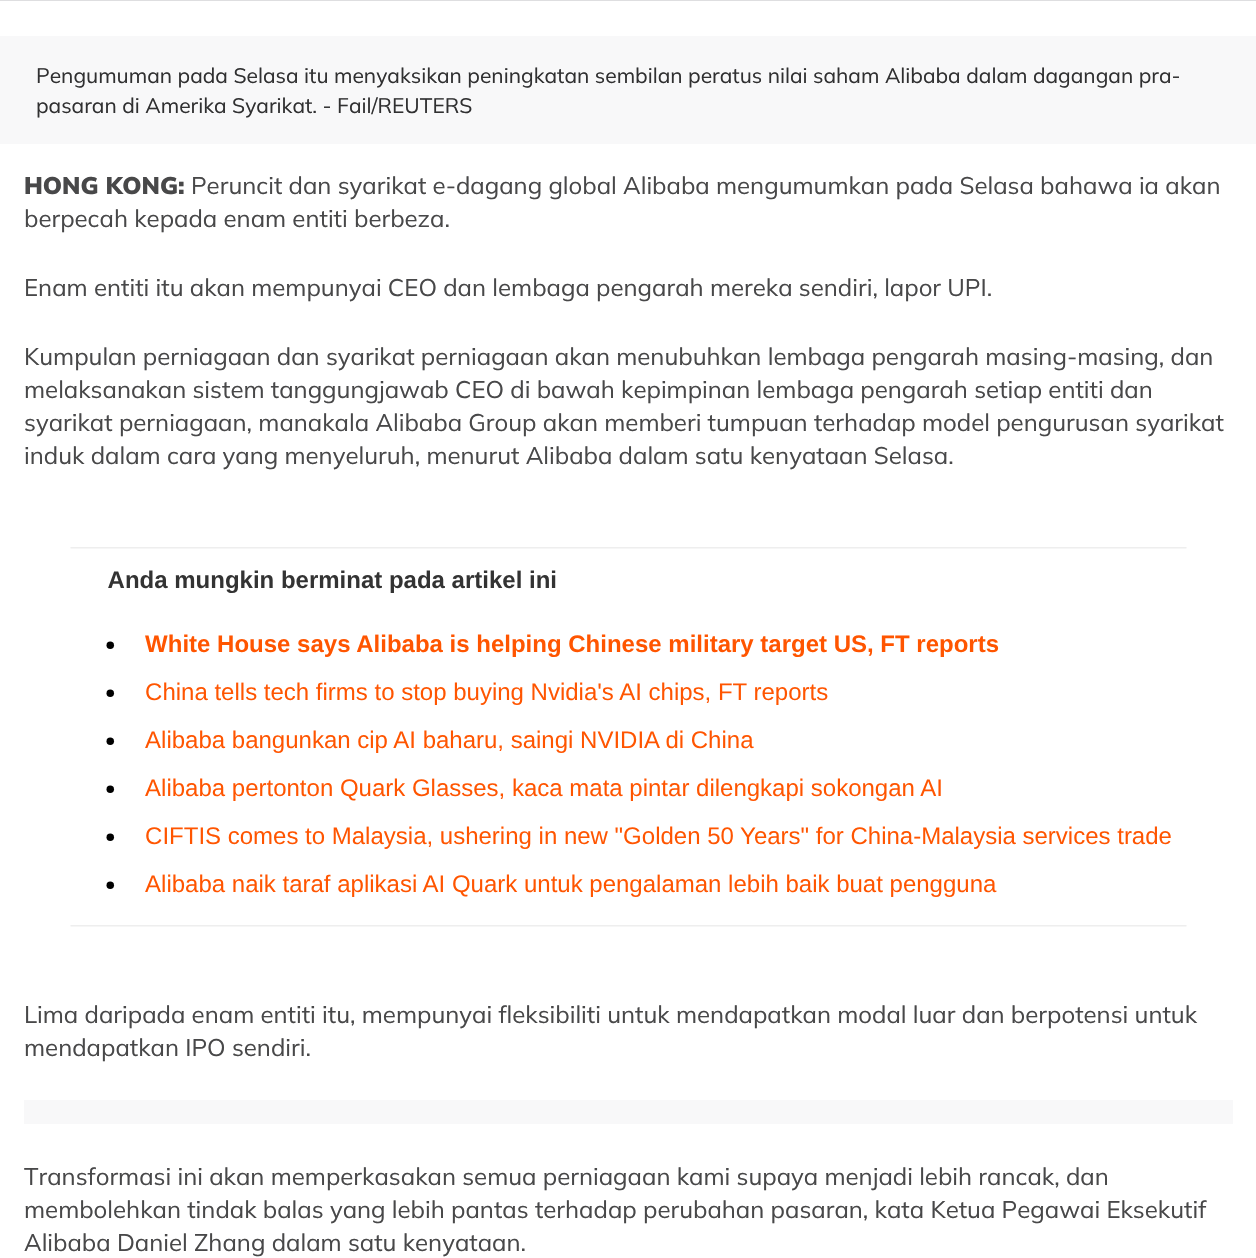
#include "include/core/SkBlurTypes.h"
#include "include/core/SkCanvas.h"
#include "include/core/SkData.h"
#include "include/core/SkFont.h"
#include "include/core/SkFontMgr.h"
#include "include/core/SkImage.h"
#include "include/core/SkMaskFilter.h"
#include "include/core/SkPaint.h"
#include "include/core/SkPathBuilder.h"
#include "include/core/SkTextBlob.h"
#include "include/effects/SkDashPathEffect.h"
#include "include/effects/SkGradientShader.h"
#include "include/utils/SkParsePath.h"

extern sk_sp<SkFontMgr> fontMgr;

void draw(SkCanvas* canvas) {
  SkPaint p;
  p.setAntiAlias(true);
  canvas->clear(SK_ColorWHITE);
  p.setColor(SkColorSetRGB(222, 222, 224));
  canvas->drawRect(SkRect::MakeLTRB(0, 0, 1256, 1), p);
  p.setColor(SkColorSetRGB(248, 248, 249));
  canvas->drawRect(SkRect::MakeLTRB(0, 36, 1256, 144), p);
  canvas->drawImageRect(SkImages::DeferredFromEncodedData(SkData::MakeFromFileName("images/1.png")), SkRect::MakeLTRB(70, 547, 1187, 927), SkSamplingOptions());
  canvas->drawRect(SkRect::MakeLTRB(24, 1100, 1233, 1124), p);
  SkFont font1(fontMgr->matchFamilyStyle("Mulish", SkFontStyle::Normal()), 21);
  font1.setSubpixel(true);
  p.setColor(SkColorSetRGB(48, 48, 49));
  canvas->drawString("Pengumuman pada Selasa itu menyaksikan peningkatan sembilan peratus nilai saham Alibaba dalam dagangan pra-", 36, 83, font1, p);
  canvas->drawString("pasaran di Amerika Syarikat. - Fail/REUTERS", 36, 113, font1, p);
  SkFont font2(fontMgr->matchFamilyStyle("Mulish", SkFontStyle(900, SkFontStyle::kNormal_Width, SkFontStyle::kUpright_Slant)), 24);
  font2.setSubpixel(true);
  p.setColor(SkColorSetRGB(72, 72, 73));
  canvas->drawString("HONG KONG:", 24, 194, font2, p);
  SkFont font3(fontMgr->matchFamilyStyle("Mulish", SkFontStyle::Normal()), 24);
  font3.setSubpixel(true);
  canvas->drawString("Peruncit dan syarikat e-dagang global Alibaba mengumumkan pada Selasa bahawa ia akan", 191, 194, font3, p);
  canvas->drawString("berpecah kepada enam entiti berbeza.", 24, 227, font3, p);
  canvas->drawString("Enam entiti itu akan mempunyai CEO dan lembaga pengarah mereka sendiri, lapor UPI.", 24, 296, font3, p);
  canvas->drawString("Kumpulan perniagaan dan syarikat perniagaan akan menubuhkan lembaga pengarah masing-masing, dan", 24, 365, font3, p);
  canvas->drawString("melaksanakan sistem tanggungjawab CEO di bawah kepimpinan lembaga pengarah setiap entiti dan", 24, 398, font3, p);
  canvas->drawString("syarikat perniagaan, manakala Alibaba Group akan memberi tumpuan terhadap model pengurusan syarikat", 24, 431, font3, p);
  canvas->drawString("induk dalam cara yang menyeluruh, menurut Alibaba dalam satu kenyataan Selasa.", 24, 464, font3, p);
  canvas->drawString("Lima daripada enam entiti itu, mempunyai fleksibiliti untuk mendapatkan modal luar dan berpotensi untuk", 24, 1023, font3, p);
  canvas->drawString("mendapatkan IPO sendiri.", 24, 1056, font3, p);
  canvas->drawString("Transformasi ini akan memperkasakan semua perniagaan kami supaya menjadi lebih rancak, dan", 24, 1185, font3, p);
  canvas->drawString("membolehkan tindak balas yang lebih pantas terhadap perubahan pasaran, kata Ketua Pegawai Eksekutif", 24, 1218, font3, p);
  canvas->drawString("Alibaba Daniel Zhang dalam satu kenyataan.", 24, 1251, font3, p);
}
